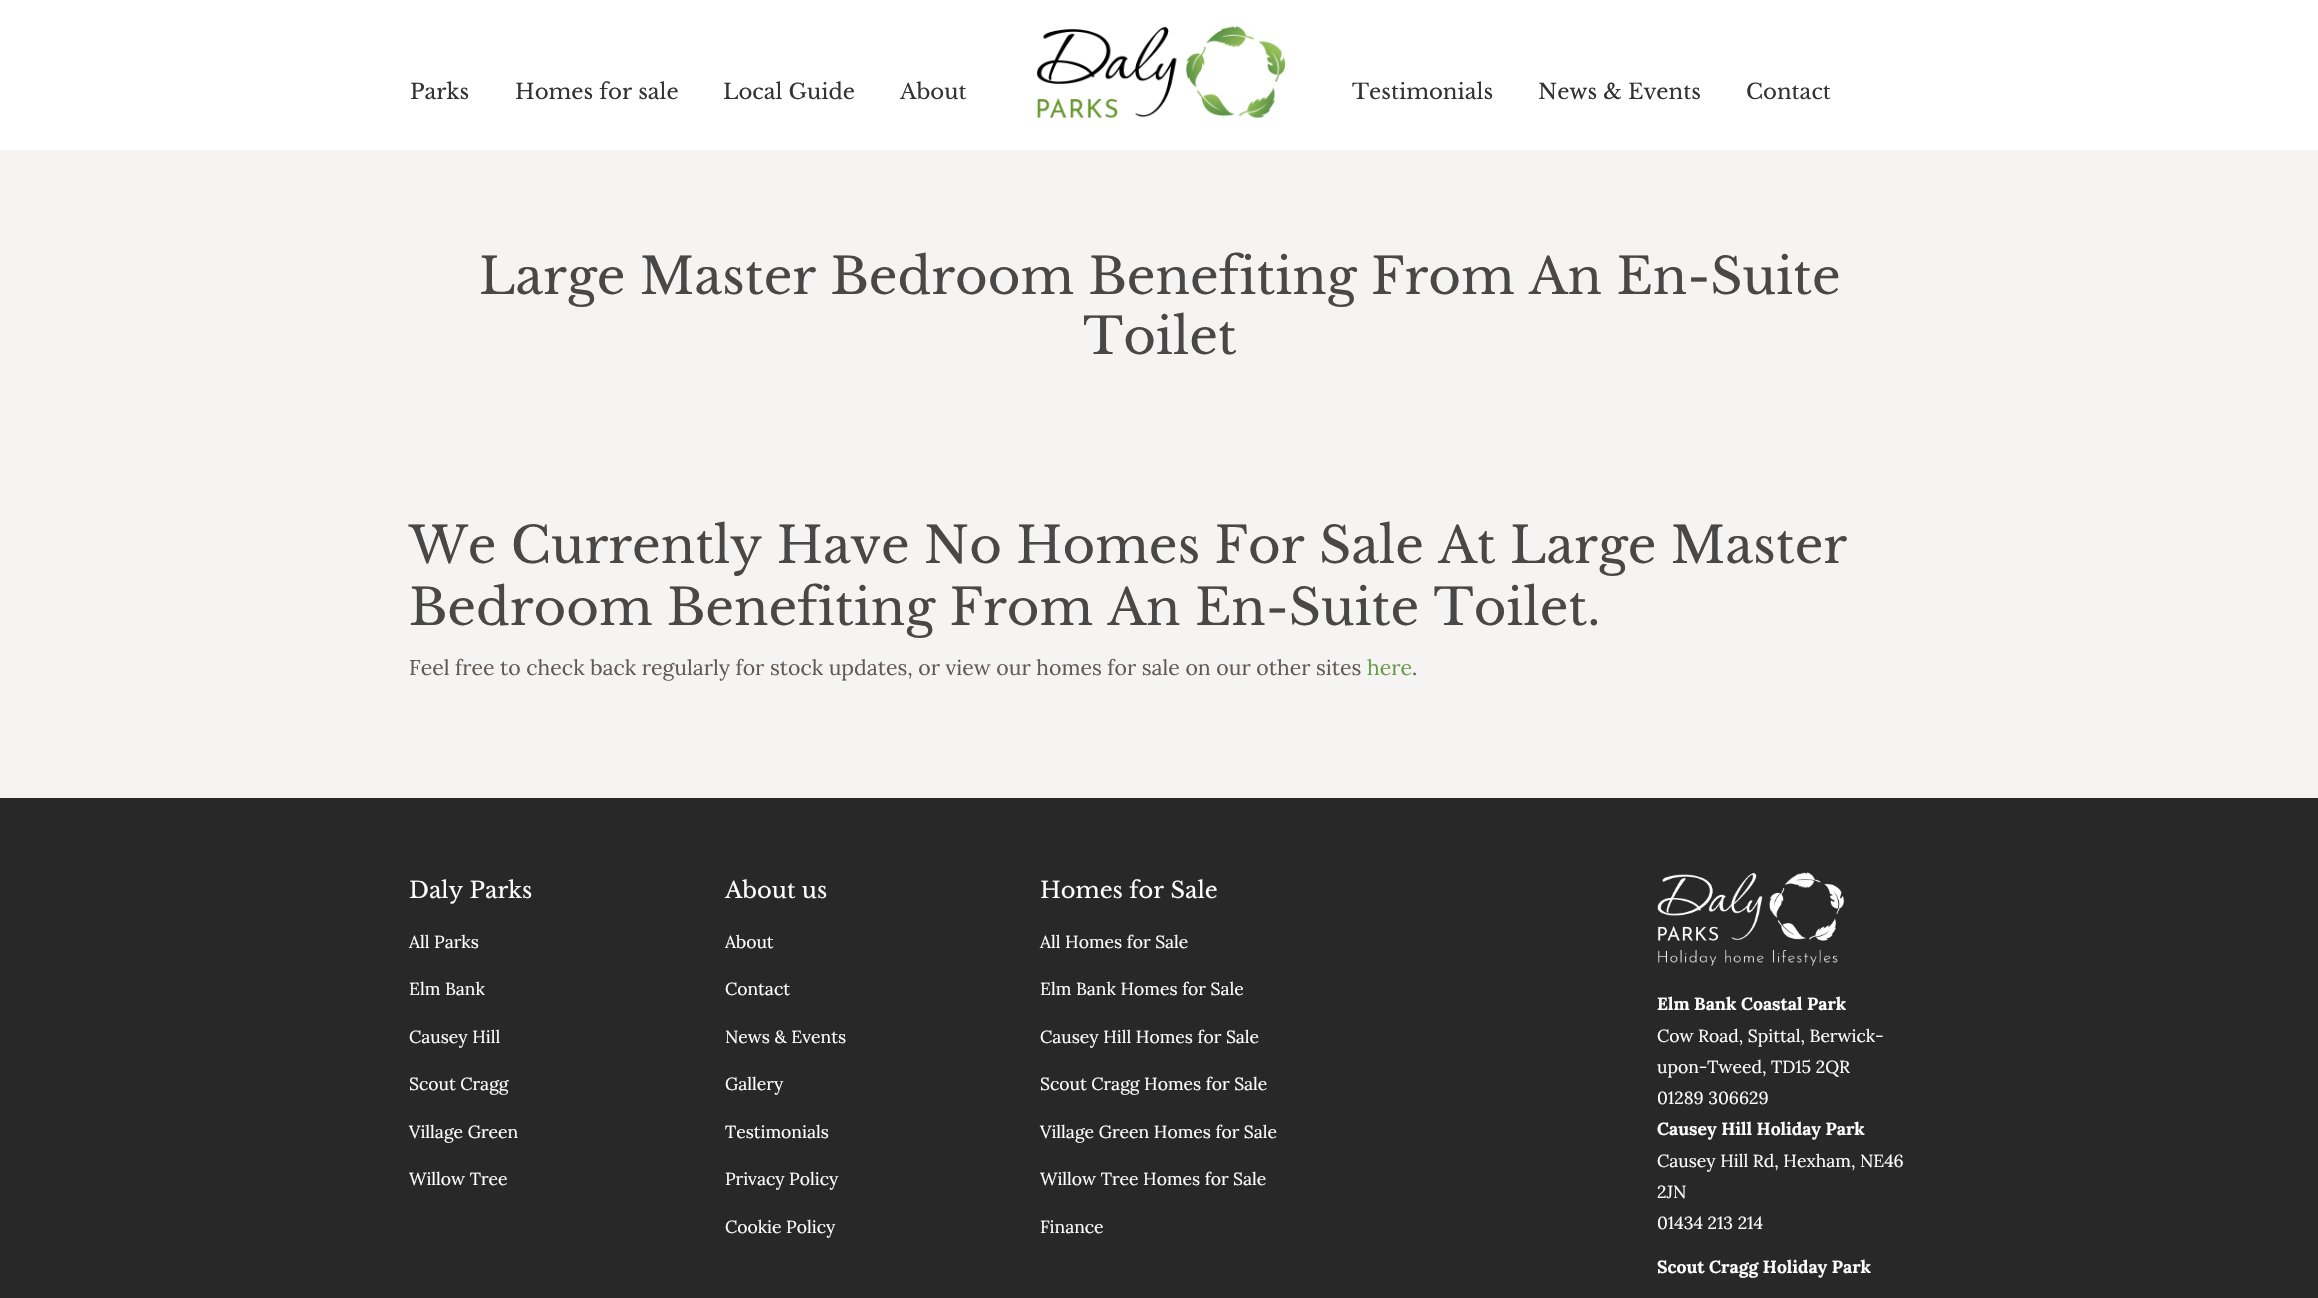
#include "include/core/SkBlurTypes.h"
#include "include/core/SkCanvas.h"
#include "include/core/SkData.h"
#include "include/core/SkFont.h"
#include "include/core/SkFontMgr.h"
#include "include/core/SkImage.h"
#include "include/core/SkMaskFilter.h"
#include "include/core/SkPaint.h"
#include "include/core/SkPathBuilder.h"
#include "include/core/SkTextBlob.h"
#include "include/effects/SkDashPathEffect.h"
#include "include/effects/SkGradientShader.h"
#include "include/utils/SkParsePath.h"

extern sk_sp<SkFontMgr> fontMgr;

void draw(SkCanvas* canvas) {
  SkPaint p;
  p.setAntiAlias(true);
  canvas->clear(SkColorSetRGB(245, 244, 242));
  p.setColor(SK_ColorWHITE);
  canvas->drawRect(SkRect::MakeLTRB(0, 0, 2318, 150), p);
  canvas->drawImageRect(SkImages::DeferredFromEncodedData(SkData::MakeFromFileName("images/1.png")), SkRect::MakeLTRB(1036, 26, 1285, 119), SkSamplingOptions());
  p.setColor(SkColorSetRGB(40, 40, 40));
  canvas->drawRect(SkRect::MakeLTRB(0, 798, 2318, 1298), p);
  canvas->drawImageRect(SkImages::DeferredFromEncodedData(SkData::MakeFromFileName("images/2.png")), SkRect::MakeLTRB(1657, 872, 1844, 966), SkSamplingOptions());
  SkFont font1(fontMgr->matchFamilyStyle("Libre Baskerville", SkFontStyle::Normal()), 21.25f);
  font1.setSubpixel(true);
  p.setColor(SkColorSetRGB(51, 51, 51));
  canvas->drawString("Parks", 410, 99, font1, p);
  canvas->drawString("Homes for sale", 515, 99, font1, p);
  canvas->drawString("Local Guide", 723, 99, font1, p);
  canvas->drawString("About", 900, 99, font1, p);
  canvas->drawString("Testimonials", 1352, 99, font1, p);
  canvas->drawString("News & Events", 1538, 99, font1, p);
  canvas->drawString("Contact", 1746, 99, font1, p);
  SkFont font2(fontMgr->matchFamilyStyle("Libre Baskerville", SkFontStyle::Normal()), 50);
  font2.setSubpixel(true);
  p.setColor(SkColorSetRGB(73, 72, 72));
  canvas->drawString("Large Master Bedroom Benefiting From An En-Suite", 479, 294, font2, p);
  canvas->drawString("Toilet", 1083, 354, font2, p);
  canvas->drawString("We Currently Have No Homes For Sale At Large Master", 409, 563, font2, p);
  canvas->drawString("Bedroom Benefiting From An En-Suite Toilet.", 409, 625, font2, p);
  SkFont font3(fontMgr->matchFamilyStyle("Lora", SkFontStyle::Normal()), 21.25f);
  font3.setSubpixel(true);
  p.setColor(SkColorSetRGB(96, 89, 86));
  canvas->drawString("Feel free to check back regularly for stock updates, or view our homes for sale on our other sites", 409, 675, font3, p);
  p.setColor(SkColorSetRGB(104, 156, 74));
  canvas->drawString("here", 1367, 675, font3, p);
  p.setColor(SkColorSetRGB(96, 89, 86));
  canvas->drawString(".", 1412, 675, font3, p);
  SkFont font4(fontMgr->matchFamilyStyle("Libre Baskerville", SkFontStyle::Normal()), 22.5f);
  font4.setSubpixel(true);
  p.setColor(SK_ColorWHITE);
  canvas->drawString("Daly Parks", 409, 898, font4, p);
  SkFont font5(fontMgr->matchFamilyStyle("Lora", SkFontStyle::Normal()), 17.5f);
  font5.setSubpixel(true);
  canvas->drawString("All Parks", 409, 948, font5, p);
  canvas->drawString("Elm Bank", 409, 995, font5, p);
  canvas->drawString("Causey Hill", 409, 1043, font5, p);
  canvas->drawString("Scout Cragg", 409, 1090, font5, p);
  canvas->drawString("Village Green", 409, 1138, font5, p);
  canvas->drawString("Willow Tree", 409, 1185, font5, p);
  canvas->drawString("About us", 725, 898, font4, p);
  canvas->drawString("About", 725, 948, font5, p);
  canvas->drawString("Contact", 725, 995, font5, p);
  canvas->drawString("News & Events", 725, 1043, font5, p);
  canvas->drawString("Gallery", 725, 1090, font5, p);
  canvas->drawString("Testimonials", 725, 1138, font5, p);
  canvas->drawString("Privacy Policy", 725, 1185, font5, p);
  canvas->drawString("Cookie Policy", 725, 1233, font5, p);
  canvas->drawString("Homes for Sale", 1040, 898, font4, p);
  canvas->drawString("All Homes for Sale", 1040, 948, font5, p);
  canvas->drawString("Elm Bank Homes for Sale", 1040, 995, font5, p);
  canvas->drawString("Causey Hill Homes for Sale", 1040, 1043, font5, p);
  canvas->drawString("Scout Cragg Homes for Sale", 1040, 1090, font5, p);
  canvas->drawString("Village Green Homes for Sale", 1040, 1138, font5, p);
  canvas->drawString("Willow Tree Homes for Sale", 1040, 1185, font5, p);
  canvas->drawString("Finance", 1040, 1233, font5, p);
  SkFont font6(fontMgr->matchFamilyStyle("Lora", SkFontStyle::Bold()), 17.5f);
  font6.setSubpixel(true);
  canvas->drawString("Elm Bank Coastal Park", 1657, 1010, font6, p);
  canvas->drawString("Cow Road, Spittal, Berwick-", 1657, 1042, font5, p);
  canvas->drawString("upon-Tweed, TD15 2QR", 1657, 1073, font5, p);
  canvas->drawString("01289 306629", 1657, 1104, font5, p);
  canvas->drawString("Causey Hill Holiday Park", 1657, 1135, font6, p);
  canvas->drawString("Causey Hill Rd, Hexham, NE46", 1657, 1167, font5, p);
  canvas->drawString("2JN", 1657, 1198, font5, p);
  canvas->drawString("01434 213 214", 1657, 1229, font5, p);
  canvas->drawString("Scout Cragg Holiday Park", 1657, 1273, font6, p);
}
